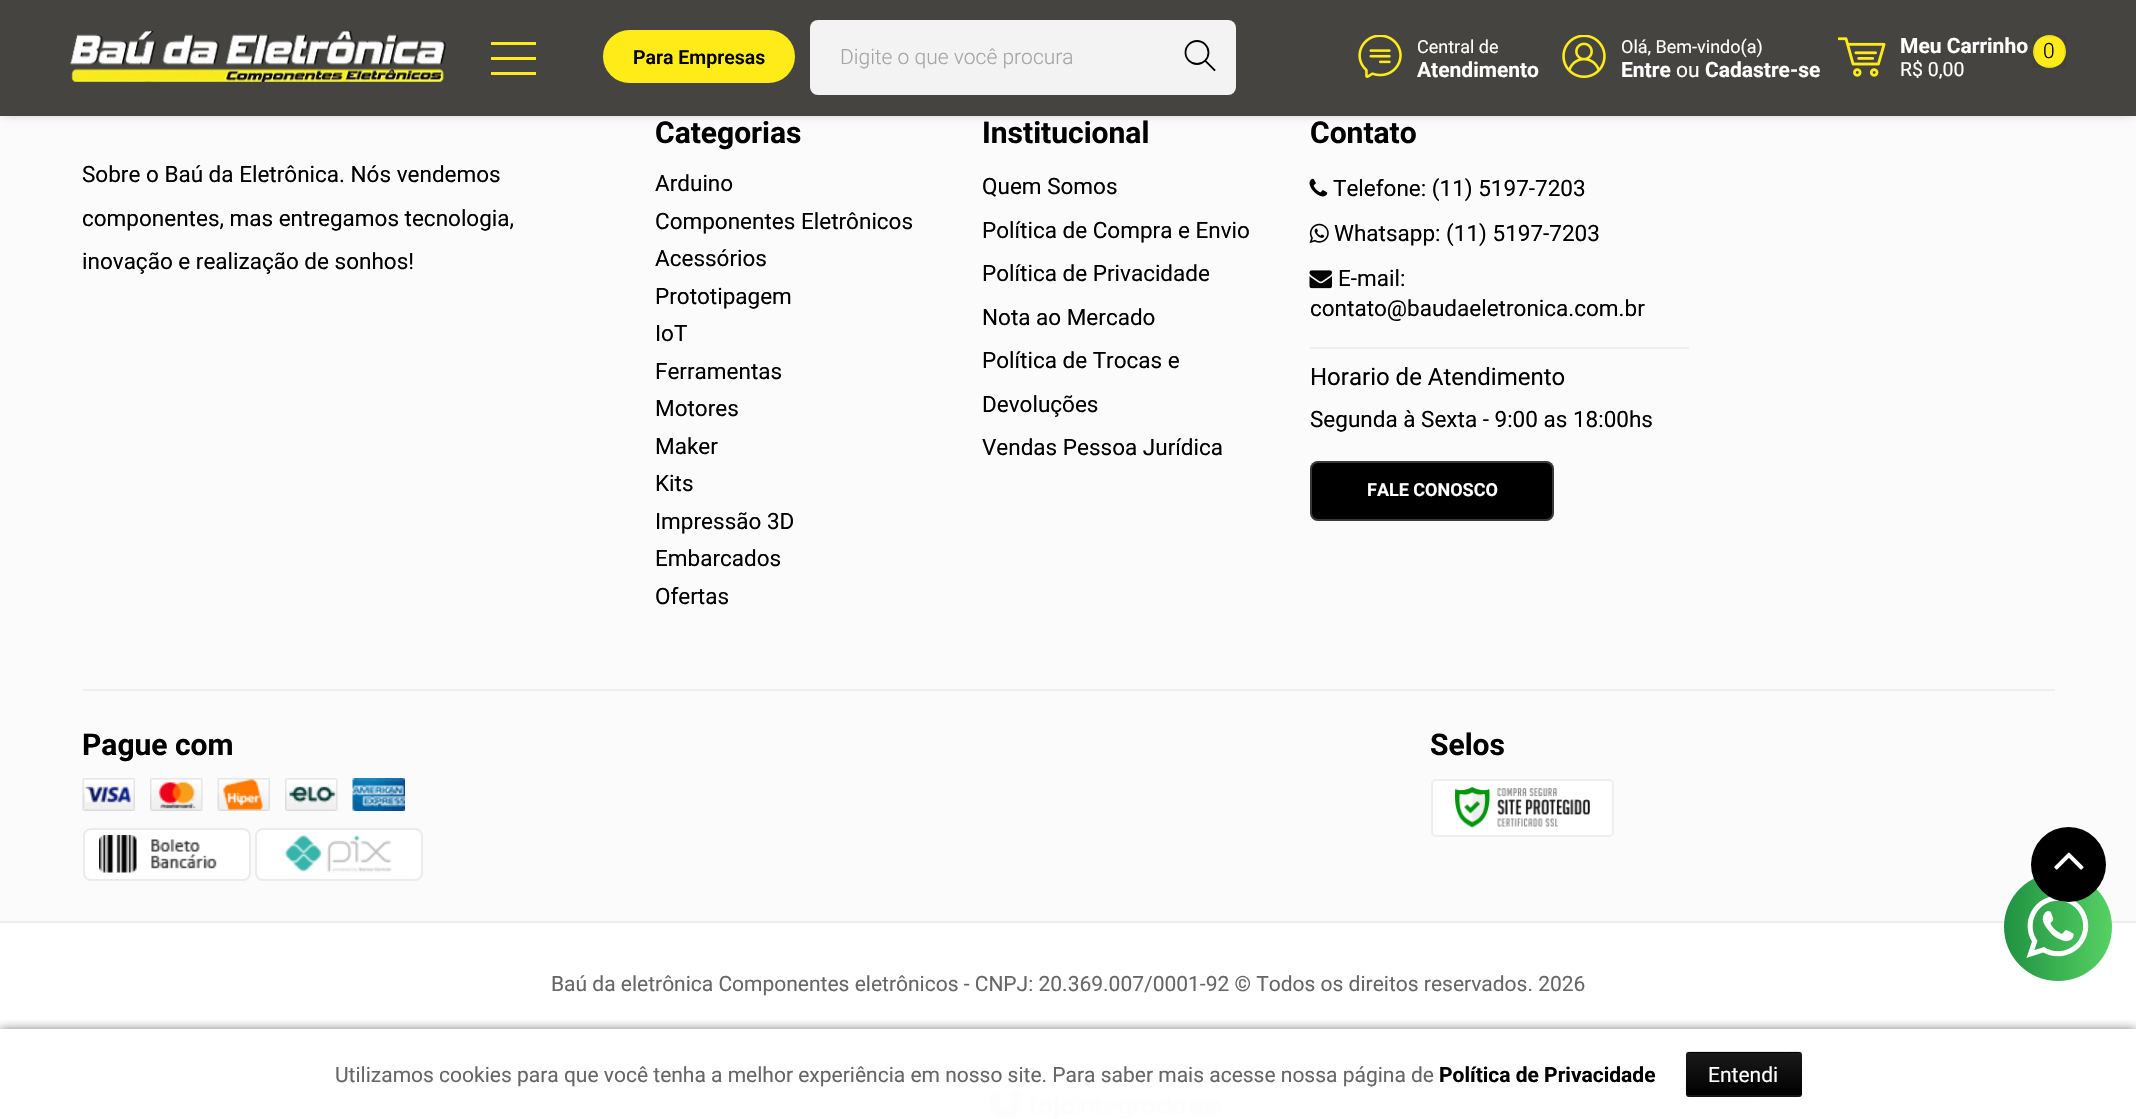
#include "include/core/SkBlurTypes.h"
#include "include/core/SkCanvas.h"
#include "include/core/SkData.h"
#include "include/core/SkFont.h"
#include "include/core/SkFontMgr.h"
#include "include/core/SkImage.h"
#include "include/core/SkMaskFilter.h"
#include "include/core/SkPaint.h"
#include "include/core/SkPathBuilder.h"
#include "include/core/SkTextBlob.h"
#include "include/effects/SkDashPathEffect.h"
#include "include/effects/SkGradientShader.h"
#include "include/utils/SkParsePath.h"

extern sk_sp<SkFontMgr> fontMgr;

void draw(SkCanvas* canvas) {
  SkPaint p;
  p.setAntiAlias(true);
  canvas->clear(SkColorSetRGB(251, 251, 251));
  p.setColor(SkColorSetARGB(77, 0, 0, 0));
  p.setMaskFilter(SkMaskFilter::MakeBlur(kNormal_SkBlurStyle, 5));
  canvas->drawRect(SkRect::MakeLTRB(3, -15, 2133, 113), p);
  p.setMaskFilter(nullptr);
  p.setColor(SkColorSetRGB(69, 68, 64));
  canvas->drawRect(SkRect::MakeLTRB(0, 0, 2136, 116), p);
  canvas->drawImageRect(SkImages::DeferredFromEncodedData(SkData::MakeFromFileName("images/1.png")), SkRect::MakeLTRB(70, 31, 446, 82), SkSamplingOptions());
  p.setColor(SkColorSetRGB(254, 235, 23));
  canvas->drawRect(SkRect::MakeLTRB(491, 42, 536, 45), p);
  canvas->drawRect(SkRect::MakeLTRB(491, 57, 536, 60), p);
  canvas->drawRect(SkRect::MakeLTRB(491, 72, 536, 75), p);
  canvas->drawRoundRect(SkRect::MakeLTRB(603, 30, 795, 83), 26.5f, 26.5f, p);
  p.setColor(SkColorSetRGB(243, 243, 243));
  canvas->drawRoundRect(SkRect::MakeLTRB(810, 20, 1236, 95), 8, 8, p);
  p.setStyle(SkPaint::kStroke_Style);
  p.setStrokeWidth(1.8f);
  p.setStrokeCap(SkPaint::kSquare_Cap);
  p.setColor(SK_ColorBLACK);
  canvas->drawPath(SkPathBuilder().moveTo(1214.5f, 70).lineTo(1205.5f, 61).detach(), p);
  p.setStrokeCap(SkPaint::kButt_Cap);
  canvas->drawCircle(1197, 52.5f, 11.5f, p);
  canvas->drawImageRect(SkImages::DeferredFromEncodedData(SkData::MakeFromFileName("images/2.png")), SkRect::MakeLTRB(1358, 35, 1402, 78), SkSamplingOptions());
  canvas->drawImageRect(SkImages::DeferredFromEncodedData(SkData::MakeFromFileName("images/3.png")), SkRect::MakeLTRB(1562, 35, 1606, 78), SkSamplingOptions());
  canvas->drawImageRect(SkImages::DeferredFromEncodedData(SkData::MakeFromFileName("images/4.png")), SkRect::MakeLTRB(1838, 37, 1886, 77), SkSamplingOptions());
  p.setStyle(SkPaint::kFill_Style);
  p.setColor(SkColorSetRGB(254, 235, 23));
  canvas->drawCircle(2049.5f, 51.5f, 16.5f, p);
  p.setStyle(SkPaint::kStroke_Style);
  p.setStrokeWidth(2);
  p.setColor(SkColorSetARGB(15, 0, 0, 0));
  canvas->drawRect(SkRect::MakeLTRB(2034, 36, 2065, 67), p);
  canvas->drawImageRect(SkImages::DeferredFromEncodedData(SkData::MakeFromFileName("images/5.png")), SkRect::MakeLTRB(1309, 178, 1328, 197), SkSamplingOptions());
  canvas->drawImageRect(SkImages::DeferredFromEncodedData(SkData::MakeFromFileName("images/6.png")), SkRect::MakeLTRB(1309, 223, 1329, 244), SkSamplingOptions());
  canvas->drawImageRect(SkImages::DeferredFromEncodedData(SkData::MakeFromFileName("images/7.png")), SkRect::MakeLTRB(1309, 270, 1332, 289), SkSamplingOptions());
  p.setStyle(SkPaint::kFill_Style);
  p.setColor(SkColorSetRGB(238, 238, 238));
  canvas->drawRect(SkRect::MakeLTRB(1310, 347, 1689, 349), p);
  p.setColor(SK_ColorBLACK);
  canvas->drawRoundRect(SkRect::MakeLTRB(1310, 461, 1554, 521), 8, 8, p);
  p.setStyle(SkPaint::kStroke_Style);
  p.setColor(SkColorSetARGB(56, 255, 255, 255));
  canvas->drawRoundRect(SkRect::MakeLTRB(1311, 462, 1553, 520), 7, 7, p);
  p.setStyle(SkPaint::kFill_Style);
  p.setColor(SkColorSetRGB(238, 238, 238));
  canvas->drawRect(SkRect::MakeLTRB(83, 689, 2055, 691), p);
  canvas->drawImageRect(SkImages::DeferredFromEncodedData(SkData::MakeFromFileName("images/8.png")), SkRect::MakeLTRB(82, 778, 135, 811), SkSamplingOptions());
  canvas->drawImageRect(SkImages::DeferredFromEncodedData(SkData::MakeFromFileName("images/9.png")), SkRect::MakeLTRB(150, 778, 203, 811), SkSamplingOptions());
  canvas->drawImageRect(SkImages::DeferredFromEncodedData(SkData::MakeFromFileName("images/10.png")), SkRect::MakeLTRB(217, 778, 270, 811), SkSamplingOptions());
  canvas->drawImageRect(SkImages::DeferredFromEncodedData(SkData::MakeFromFileName("images/11.png")), SkRect::MakeLTRB(285, 778, 338, 811), SkSamplingOptions());
  canvas->drawImageRect(SkImages::DeferredFromEncodedData(SkData::MakeFromFileName("images/12.png")), SkRect::MakeLTRB(352, 778, 405, 811), SkSamplingOptions());
  p.setColor(SK_ColorWHITE);
  canvas->drawRoundRect(SkRect::MakeLTRB(84, 829, 250, 880), 7, 7, p);
  p.setStyle(SkPaint::kStroke_Style);
  p.setColor(SkColorSetRGB(235, 235, 235));
  canvas->drawRoundRect(SkRect::MakeLTRB(84, 829, 250, 880), 7, 7, p);
  canvas->drawImageRect(SkImages::DeferredFromEncodedData(SkData::MakeFromFileName("images/13.png")), SkRect::MakeLTRB(99, 835, 217, 873), SkSamplingOptions());
  p.setStyle(SkPaint::kFill_Style);
  p.setColor(SK_ColorWHITE);
  canvas->drawRoundRect(SkRect::MakeLTRB(256, 829, 422, 880), 7, 7, p);
  p.setStyle(SkPaint::kStroke_Style);
  p.setColor(SkColorSetRGB(235, 235, 235));
  canvas->drawRoundRect(SkRect::MakeLTRB(256, 829, 422, 880), 7, 7, p);
  canvas->drawImageRect(SkImages::DeferredFromEncodedData(SkData::MakeFromFileName("images/14.png")), SkRect::MakeLTRB(285, 835, 392, 873), SkSamplingOptions());
  p.setStyle(SkPaint::kFill_Style);
  p.setColor(SK_ColorWHITE);
  canvas->drawRoundRect(SkRect::MakeLTRB(1432, 780, 1613, 836), 4, 4, p);
  p.setStyle(SkPaint::kStroke_Style);
  p.setColor(SkColorSetRGB(238, 238, 238));
  canvas->drawRoundRect(SkRect::MakeLTRB(1432, 780, 1613, 836), 4, 4, p);
  canvas->drawImageRect(SkImages::DeferredFromEncodedData(SkData::MakeFromFileName("images/15.png")), SkRect::MakeLTRB(1455, 787, 1590, 828), SkSamplingOptions());
  p.setStyle(SkPaint::kFill_Style);
  p.setColor(SK_ColorWHITE);
  canvas->drawRect(SkRect::MakeLTRB(0, 923, 2136, 1119), p);
  p.setColor(SkColorSetRGB(238, 238, 238));
  canvas->drawRect(SkRect::MakeLTRB(0, 921, 2136, 923), p);
  canvas->drawImageRect(SkImages::DeferredFromEncodedData(SkData::MakeFromFileName("images/16.png")), SkRect::MakeLTRB(989, 1089, 1222, 1119), SkSamplingOptions());
  {
    const SkColor colors[] = {SkColorSetRGB(32, 145, 66), SkColorSetRGB(86, 210, 99)};
    const float stops[] = {0, 1};
    const SkPoint ends[] = {{2004, 927}, {2112, 927}};
    p.setShader(SkGradientShader::MakeLinear(ends, colors, stops, 2, SkTileMode::kClamp));
    p.setAlpha(255);
  }
  canvas->drawCircle(2058, 927, 54, p);
  canvas->drawImageRect(SkImages::DeferredFromEncodedData(SkData::MakeFromFileName("images/18.png")), SkRect::MakeLTRB(2026, 896, 2089, 958), SkSamplingOptions());
  p.setShader(nullptr);
  p.setColor(SK_ColorBLACK);
  canvas->drawCircle(2068.5f, 864.5f, 37.5f, p);
  canvas->drawImageRect(SkImages::DeferredFromEncodedData(SkData::MakeFromFileName("images/17.png")), SkRect::MakeLTRB(2054, 852, 2084, 870), SkSamplingOptions());
  canvas->save();
  canvas->clipRect(SkRect::MakeLTRB(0, 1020, 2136, 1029));
  p.setColor(SkColorSetARGB(128, 0, 0, 0));
  p.setMaskFilter(SkMaskFilter::MakeBlur(kNormal_SkBlurStyle, 5));
  canvas->drawRect(SkRect::MakeLTRB(0, 1029, 2136, 1119), p);
  p.setMaskFilter(nullptr);
  canvas->restore();
  p.setColor(SK_ColorBLACK);
  canvas->drawRoundRect(SkRect::MakeLTRB(1686, 1052, 1802, 1097), 3, 3, p);
  {
    const SkColor colors[] = {SkColorSetARGB(26, 255, 255, 255), SkColorSetARGB(26, 0, 0, 0)};
    const float stops[] = {0, 1};
    const SkPoint ends[] = {{1744, 1011}, {1744, 1053}};
    p.setShader(SkGradientShader::MakeLinear(ends, colors, stops, 2, SkTileMode::kClamp));
    p.setAlpha(255);
  }
  canvas->drawRect(SkRect::MakeLTRB(1686, 1052, 1802, 1053), p);
  {
    const SkColor colors[] = {SkColorSetARGB(26, 255, 255, 255), SkColorSetARGB(26, 0, 0, 0)};
    const float stops[] = {0, 1};
    const SkPoint ends[] = {{1744, 1053}, {1744, 1095}};
    p.setShader(SkGradientShader::MakeLinear(ends, colors, stops, 2, SkTileMode::kClamp));
    p.setAlpha(255);
  }
  canvas->drawRect(SkRect::MakeLTRB(1686, 1053, 1802, 1095), p);
  {
    const SkColor colors[] = {SkColorSetARGB(26, 255, 255, 255), SkColorSetARGB(26, 0, 0, 0)};
    const float stops[] = {0, 1};
    const SkPoint ends[] = {{1744, 1095}, {1744, 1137}};
    p.setShader(SkGradientShader::MakeLinear(ends, colors, stops, 2, SkTileMode::kClamp));
    p.setAlpha(255);
  }
  canvas->drawRect(SkRect::MakeLTRB(1686, 1095, 1802, 1097), p);
  p.setStyle(SkPaint::kStroke_Style);
  p.setStrokeWidth(1.5f);
  p.setShader(nullptr);
  p.setColor(SkColorSetARGB(51, 0, 0, 0));
  canvas->drawPath(SkPathBuilder().moveTo(1800, 1095).lineTo(1798.5f, 1095.5f).lineTo(1707, 1096).lineTo(1689, 1096).lineTo(1687.5f, 1095).detach(), p);
  p.setColor(SkColorSetARGB(26, 0, 0, 0));
  canvas->drawPath(SkPathBuilder().moveTo(1687.5f, 1095).cubicTo(1685.5f, 1093.5f, 1687, 1077, 1687, 1074).lineTo(1687, 1061).cubicTo(1687, 1060, 1685, 1052.5f, 1689, 1052).lineTo(1780, 1052).cubicTo(1803.5f, 1052, 1801, 1047, 1801, 1067.5f).cubicTo(1801, 1071.5f, 1802, 1093.5f, 1800, 1095).detach(), p);
  SkFont font1(fontMgr->matchFamilyStyle("Roboto", SkFontStyle(600, SkFontStyle::kNormal_Width, SkFontStyle::kUpright_Slant)), 19.5f);
  font1.setSubpixel(true);
  p.setStyle(SkPaint::kFill_Style);
  p.setColor(SK_ColorBLACK);
  canvas->drawString("Para Empresas", 633, 64, font1, p);
  SkFont font2(fontMgr->matchFamilyStyle("Roboto", SkFontStyle(300, SkFontStyle::kNormal_Width, SkFontStyle::kUpright_Slant)), 21);
  font2.setSubpixel(true);
  p.setColor(SkColorSetRGB(165, 165, 165));
  canvas->drawString("Digite o que você procura", 840, 64, font2, p);
  SkFont font3(fontMgr->matchFamilyStyle("Roboto", SkFontStyle::Normal()), 18);
  font3.setSubpixel(true);
  p.setColor(SK_ColorWHITE);
  canvas->drawString("Central de", 1417, 53, font3, p);
  SkFont font4(fontMgr->matchFamilyStyle("Roboto", SkFontStyle::Bold()), 21);
  font4.setSubpixel(true);
  canvas->drawString("Atendimento", 1417, 77, font4, p);
  canvas->drawString("Olá, Bem-vindo(a)", 1621, 53, font3, p);
  canvas->drawString("Entre", 1621, 77, font4, p);
  SkFont font5(fontMgr->matchFamilyStyle("Roboto", SkFontStyle::Normal()), 21);
  font5.setSubpixel(true);
  canvas->drawString("ou", 1676, 77, font5, p);
  canvas->drawString("Cadastre-se", 1705, 77, font4, p);
  canvas->drawString("Meu Carrinho", 1900, 53, font4, p);
  SkFont font6(fontMgr->matchFamilyStyle("Roboto", SkFontStyle::Normal()), 19.5f);
  font6.setSubpixel(true);
  canvas->drawString("R$ 0,00", 1900, 76, font6, p);
  p.setColor(SK_ColorBLACK);
  canvas->drawString("0", 2043, 58, font2, p);
  SkFont font7(fontMgr->matchFamilyStyle("Roboto", SkFontStyle::Normal()), 22.5f);
  font7.setSubpixel(true);
  canvas->drawString("Sobre o Baú da Eletrônica. Nós vendemos", 82, 182, font7, p);
  canvas->drawString("componentes, mas entregamos tecnologia,", 82, 226, font7, p);
  canvas->drawString("inovação e realização de sonhos!", 82, 269, font7, p);
  SkFont font8(fontMgr->matchFamilyStyle("Roboto", SkFontStyle::Bold()), 30);
  font8.setSubpixel(true);
  canvas->drawString("Categorias", 655, 143, font8, p);
  canvas->drawString("Arduino", 655, 191, font7, p);
  canvas->drawString("Componentes Eletrônicos", 655, 229, font7, p);
  canvas->drawString("Acessórios", 655, 266, font7, p);
  canvas->drawString("Prototipagem", 655, 304, font7, p);
  canvas->drawString("IoT", 655, 341, font7, p);
  canvas->drawString("Ferramentas", 655, 379, font7, p);
  canvas->drawString("Motores", 655, 416, font7, p);
  canvas->drawString("Maker", 655, 454, font7, p);
  canvas->drawString("Kits", 655, 491, font7, p);
  canvas->drawString("Impressão 3D", 655, 529, font7, p);
  canvas->drawString("Embarcados", 655, 566, font7, p);
  canvas->drawString("Ofertas", 655, 604, font7, p);
  canvas->drawString("Institucional", 982, 143, font8, p);
  canvas->drawString("Quem Somos", 982, 194, font7, p);
  canvas->drawString("Política de Compra e Envio", 982, 238, font7, p);
  canvas->drawString("Política de Privacidade", 982, 281, font7, p);
  canvas->drawString("Nota ao Mercado", 982, 325, font7, p);
  canvas->drawString("Política de Trocas e", 982, 368, font7, p);
  canvas->drawString("Devoluções", 982, 412, font7, p);
  canvas->drawString("Vendas Pessoa Jurídica", 982, 455, font7, p);
  canvas->drawString("Contato", 1310, 143, font8, p);
  canvas->drawString("Telefone: (11) 5197-7203", 1333, 196, font7, p);
  canvas->drawString("Whatsapp: (11) 5197-7203", 1334, 241, font7, p);
  canvas->drawString("E-mail:", 1338, 286, font7, p);
  canvas->drawString("contato@baudaeletronica.com.br", 1310, 316, font7, p);
  SkFont font9(fontMgr->matchFamilyStyle("Roboto", SkFontStyle::Normal()), 24);
  font9.setSubpixel(true);
  canvas->drawString("Horario de Atendimento", 1310, 385, font9, p);
  canvas->drawString("Segunda à Sexta - 9:00 as 18:00hs", 1310, 427, font7, p);
  SkFont font10(fontMgr->matchFamilyStyle("Roboto", SkFontStyle::Bold()), 18);
  font10.setSubpixel(true);
  p.setColor(SK_ColorWHITE);
  canvas->drawString("FALE CONOSCO", 1367, 496, font10, p);
  p.setColor(SK_ColorBLACK);
  canvas->drawString("Pague com", 82, 755, font8, p);
  canvas->drawString("Selos", 1430, 755, font8, p);
  p.setColor(SkColorSetRGB(102, 102, 102));
  canvas->drawString("Baú da eletrônica Componentes eletrônicos - CNPJ: 20.369.007/0001-92 © Todos os direitos reservados. 2026", 551, 991, font5, p);
  canvas->drawString("Utilizamos cookies para que você tenha a melhor experiência em nosso site. Para saber mais acesse nossa página de", 335, 1082, font5, p);
  p.setColor(SK_ColorBLACK);
  canvas->drawString("Política de Privacidade", 1439, 1082, font4, p);
  p.setColor(SK_ColorWHITE);
  canvas->drawString("Entendi", 1708, 1082, font5, p);
}
